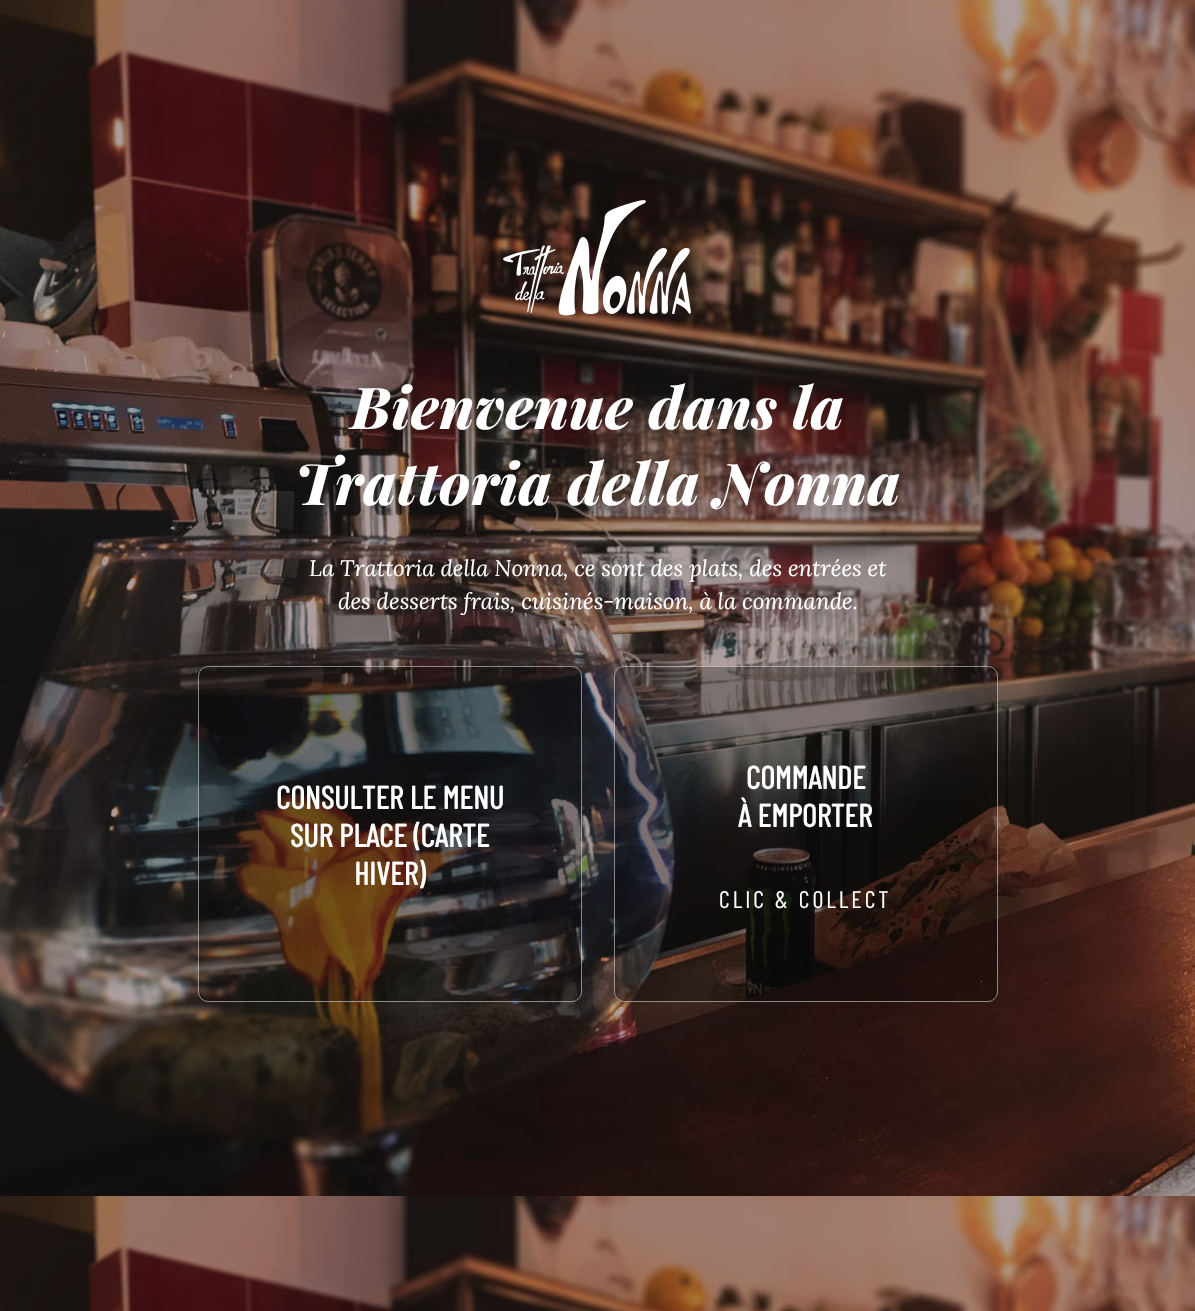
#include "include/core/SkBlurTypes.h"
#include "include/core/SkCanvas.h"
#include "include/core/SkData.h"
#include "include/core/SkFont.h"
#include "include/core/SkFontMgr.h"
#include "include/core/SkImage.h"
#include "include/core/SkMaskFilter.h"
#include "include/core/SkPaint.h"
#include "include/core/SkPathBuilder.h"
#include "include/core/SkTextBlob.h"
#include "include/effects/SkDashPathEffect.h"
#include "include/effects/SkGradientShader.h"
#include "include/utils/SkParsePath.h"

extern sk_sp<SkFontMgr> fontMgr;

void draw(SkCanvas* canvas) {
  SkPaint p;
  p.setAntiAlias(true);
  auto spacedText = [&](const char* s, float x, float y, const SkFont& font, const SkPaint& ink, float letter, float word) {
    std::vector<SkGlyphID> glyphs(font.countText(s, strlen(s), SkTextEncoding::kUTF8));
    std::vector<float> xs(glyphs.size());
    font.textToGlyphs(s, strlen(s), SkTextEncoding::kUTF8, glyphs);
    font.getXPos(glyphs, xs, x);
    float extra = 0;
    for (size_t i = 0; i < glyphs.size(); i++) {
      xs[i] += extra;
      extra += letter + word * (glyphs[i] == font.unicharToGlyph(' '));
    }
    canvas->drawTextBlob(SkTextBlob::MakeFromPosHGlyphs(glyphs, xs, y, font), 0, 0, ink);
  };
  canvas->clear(SK_ColorWHITE);
  canvas->drawImageRect(SkImages::DeferredFromEncodedData(SkData::MakeFromFileName("images/1.png")), SkRect::MakeLTRB(0, 0, 1195, 1311), SkSamplingOptions());
  canvas->drawImageRect(SkImages::DeferredFromEncodedData(SkData::MakeFromFileName("images/2.png")), SkRect::MakeLTRB(503, 200, 691, 316), SkSamplingOptions());
  p.setColor(SkColorSetARGB(74, 0, 0, 0));
  canvas->drawRoundRect(SkRect::MakeLTRB(198, 666, 582, 1002), 10, 10, p);
  p.setStyle(SkPaint::kStroke_Style);
  p.setStrokeWidth(1);
  p.setColor(SkColorSetARGB(125, 255, 255, 255));
  canvas->drawRoundRect(SkRect::MakeLTRB(198.5f, 666.5f, 581.5f, 1001.5f), 9.5f, 9.5f, p);
  p.setStyle(SkPaint::kFill_Style);
  p.setColor(SkColorSetARGB(74, 0, 0, 0));
  canvas->drawRoundRect(SkRect::MakeLTRB(614, 666, 998, 1002), 10, 10, p);
  p.setStyle(SkPaint::kStroke_Style);
  p.setColor(SkColorSetARGB(125, 255, 255, 255));
  canvas->drawRoundRect(SkRect::MakeLTRB(614.5f, 666.5f, 997.5f, 1001.5f), 9.5f, 9.5f, p);
  SkFont font1(fontMgr->matchFamilyStyle("Playfair Display", SkFontStyle(800, SkFontStyle::kNormal_Width, SkFontStyle::kItalic_Slant)), 57.6f);
  font1.setSubpixel(true);
  p.setStyle(SkPaint::kFill_Style);
  p.setColor(SK_ColorWHITE);
  spacedText("Bienvenue dans la", 351, 429, font1, p, 0.5f, 0);
  spacedText("Trattoria della Nonna", 295, 505, font1, p, 0.5f, 0);
  SkFont font2(fontMgr->matchFamilyStyle("Lora", SkFontStyle::Italic()), 22.4f);
  font2.setSubpixel(true);
  canvas->drawString("La Trattoria della Nonna, ce sont des plats, des entrées et", 309, 576, font2, p);
  canvas->drawString("des desserts frais, cuisinés-maison, à la commande.", 338, 609, font2, p);
  SkFont font3(fontMgr->matchFamilyStyle("Barlow Condensed", SkFontStyle::Bold()), 32);
  font3.setSubpixel(true);
  canvas->drawString("CONSULTER LE MENU", 276, 809, font3, p);
  canvas->drawString("SUR PLACE (CARTE", 290, 847, font3, p);
  canvas->drawString("HIVER)", 354, 885, font3, p);
  canvas->drawString("COMMANDE", 746, 789, font3, p);
  canvas->drawString("À EMPORTER", 738, 827, font3, p);
  SkFont font4(fontMgr->matchFamilyStyle("Barlow Condensed", SkFontStyle::Normal()), 24);
  font4.setSubpixel(true);
  spacedText("CLIC & COLLECT", 719, 908, font4, p, 3, 0);
}
